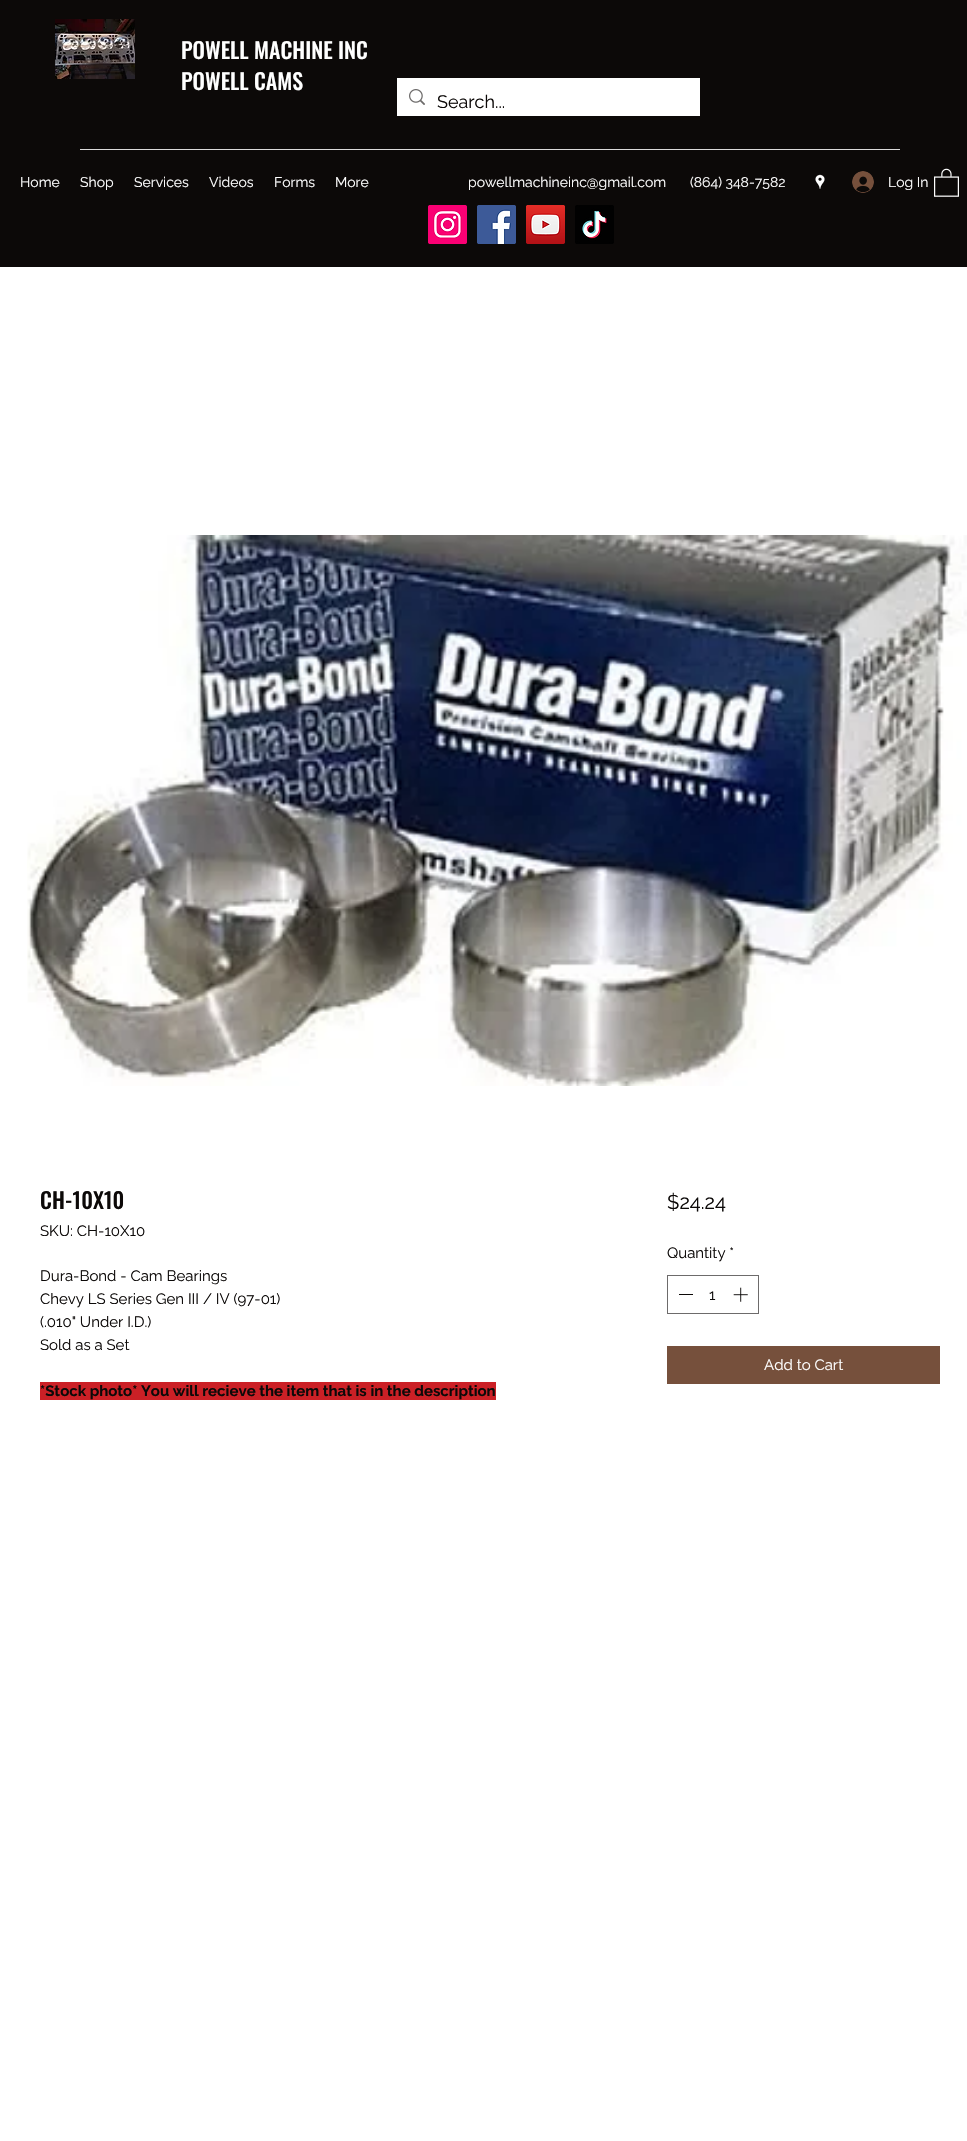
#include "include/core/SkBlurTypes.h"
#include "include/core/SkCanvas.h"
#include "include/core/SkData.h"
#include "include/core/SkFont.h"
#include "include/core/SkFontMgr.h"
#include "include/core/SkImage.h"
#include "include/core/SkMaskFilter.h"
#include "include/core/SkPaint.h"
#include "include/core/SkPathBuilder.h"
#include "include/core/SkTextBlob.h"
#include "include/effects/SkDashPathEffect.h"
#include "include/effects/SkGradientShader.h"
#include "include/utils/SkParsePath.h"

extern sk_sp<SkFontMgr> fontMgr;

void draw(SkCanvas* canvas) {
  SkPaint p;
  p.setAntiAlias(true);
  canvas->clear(SK_ColorWHITE);
  p.setColor(SkColorSetRGB(12, 9, 8));
  canvas->drawRect(SkRect::MakeLTRB(0, 0, 967, 267), p);
  canvas->drawImageRect(SkImages::DeferredFromEncodedData(SkData::MakeFromFileName("images/1.png")), SkRect::MakeLTRB(55, 19, 135, 79), SkSamplingOptions());
  p.setColor(SK_ColorWHITE);
  canvas->drawRect(SkRect::MakeLTRB(397, 78, 700, 116), p);
  canvas->drawImageRect(SkImages::DeferredFromEncodedData(SkData::MakeFromFileName("images/2.png")), SkRect::MakeLTRB(409, 89, 425, 105), SkSamplingOptions());
  p.setColor(SkColorSetRGB(219, 218, 218));
  canvas->drawRect(SkRect::MakeLTRB(80, 149, 900, 150), p);
  canvas->drawImageRect(SkImages::DeferredFromEncodedData(SkData::MakeFromFileName("images/3.png")), SkRect::MakeLTRB(815, 174, 825, 189), SkSamplingOptions());
  canvas->drawImageRect(SkImages::DeferredFromEncodedData(SkData::MakeFromFileName("images/4.png")), SkRect::MakeLTRB(852, 171, 874, 193), SkSamplingOptions());
  canvas->drawImageRect(SkImages::DeferredFromEncodedData(SkData::MakeFromFileName("images/5.png")), SkRect::MakeLTRB(934, 168, 959, 197), SkSamplingOptions());
  canvas->drawImageRect(SkImages::DeferredFromEncodedData(SkData::MakeFromFileName("images/6.png")), SkRect::MakeLTRB(428, 205, 467, 244), SkSamplingOptions());
  canvas->drawImageRect(SkImages::DeferredFromEncodedData(SkData::MakeFromFileName("images/7.png")), SkRect::MakeLTRB(477, 205, 516, 244), SkSamplingOptions());
  canvas->drawImageRect(SkImages::DeferredFromEncodedData(SkData::MakeFromFileName("images/8.png")), SkRect::MakeLTRB(526, 205, 565, 244), SkSamplingOptions());
  canvas->drawImageRect(SkImages::DeferredFromEncodedData(SkData::MakeFromFileName("images/9.png")), SkRect::MakeLTRB(575, 205, 614, 244), SkSamplingOptions());
  canvas->drawImageRect(SkImages::DeferredFromEncodedData(SkData::MakeFromFileName("images/10.png")), SkRect::MakeLTRB(27, 535, 967, 1086), SkSamplingOptions());
  p.setColor(SkColorSetRGB(203, 32, 38));
  canvas->drawRect(SkRect::MakeLTRB(40, 1382, 496, 1400), p);
  p.setStyle(SkPaint::kStroke_Style);
  p.setStrokeWidth(1);
  p.setColor(SkColorSetRGB(109, 107, 107));
  canvas->drawRect(SkRect::MakeLTRB(667.5f, 1275.5f, 758.5f, 1313.5f), p);
  p.setStyle(SkPaint::kFill_Style);
  p.setColor(SkColorSetRGB(12, 9, 8));
  canvas->drawRect(SkRect::MakeLTRB(679, 1294, 693, 1295), p);
  canvas->drawImageRect(SkImages::DeferredFromEncodedData(SkData::MakeFromFileName("images/11.png")), SkRect::MakeLTRB(733, 1287, 748, 1302), SkSamplingOptions());
  p.setColor(SkColorSetRGB(118, 80, 60));
  canvas->drawRect(SkRect::MakeLTRB(667, 1346, 940, 1384), p);
  SkFont font1(fontMgr->matchFamilyStyle("Oswald", SkFontStyle(500, SkFontStyle::kNormal_Width, SkFontStyle::kUpright_Slant)), 22);
  font1.setSubpixel(true);
  p.setColor(SK_ColorWHITE);
  canvas->drawString("POWELL MACHINE INC", 181, 59, font1, p);
  canvas->drawString("POWELL CAMS", 181, 90, font1, p);
  SkFont font2(fontMgr->matchFamilyStyle("Raleway", SkFontStyle::Normal()), 18);
  font2.setSubpixel(true);
  p.setColor(SkColorSetRGB(12, 9, 8));
  canvas->drawString("Search...", 437, 108, font2, p);
  SkFont font3(fontMgr->matchFamilyStyle("Raleway", SkFontStyle::Normal()), 14);
  font3.setSubpixel(true);
  p.setColor(SK_ColorWHITE);
  canvas->drawString("Home", 20, 187, font3, p);
  canvas->drawString("Shop", 80, 187, font3, p);
  canvas->drawString("Services", 134, 187, font3, p);
  canvas->drawString("Videos", 209, 187, font3, p);
  canvas->drawString("Forms", 274, 187, font3, p);
  canvas->drawString("More", 335, 187, font3, p);
  canvas->drawString("powellmachineinc@gmail.com", 468, 187, font3, p);
  canvas->drawString("(864) 348-7582", 690, 187, font3, p);
  canvas->drawString("Log In", 888, 187, font3, p);
  p.setColor(SkColorSetRGB(12, 9, 8));
  canvas->drawString("CH-10X10", 40, 1209, font1, p);
  SkFont font4(fontMgr->matchFamilyStyle("Raleway", SkFontStyle::Normal()), 15);
  font4.setSubpixel(true);
  canvas->drawString("SKU: CH-10X10", 40, 1236, font4, p);
  canvas->drawString("Dura-Bond - Cam Bearings", 40, 1281, font4, p);
  canvas->drawString("Chevy LS Series Gen III / IV (97-01)", 40, 1304, font4, p);
  canvas->drawString("(.010\" Under I.D.)", 40, 1327, font4, p);
  canvas->drawString("Sold as a Set", 40, 1350, font4, p);
  SkFont font5(fontMgr->matchFamilyStyle("Raleway", SkFontStyle::Bold()), 15);
  font5.setSubpixel(true);
  canvas->drawString("*Stock photo* You will recieve the item that is in the description", 40, 1396, font5, p);
  SkFont font6(fontMgr->matchFamilyStyle("Raleway", SkFontStyle::Normal()), 20);
  font6.setSubpixel(true);
  canvas->drawString("$24.24", 667, 1209, font6, p);
  canvas->drawString("Quantity *", 667, 1258, font4, p);
  canvas->drawString("1", 709, 1300, font4, p);
  p.setColor(SK_ColorWHITE);
  canvas->drawString("Add to Cart", 764, 1370, font4, p);
}
